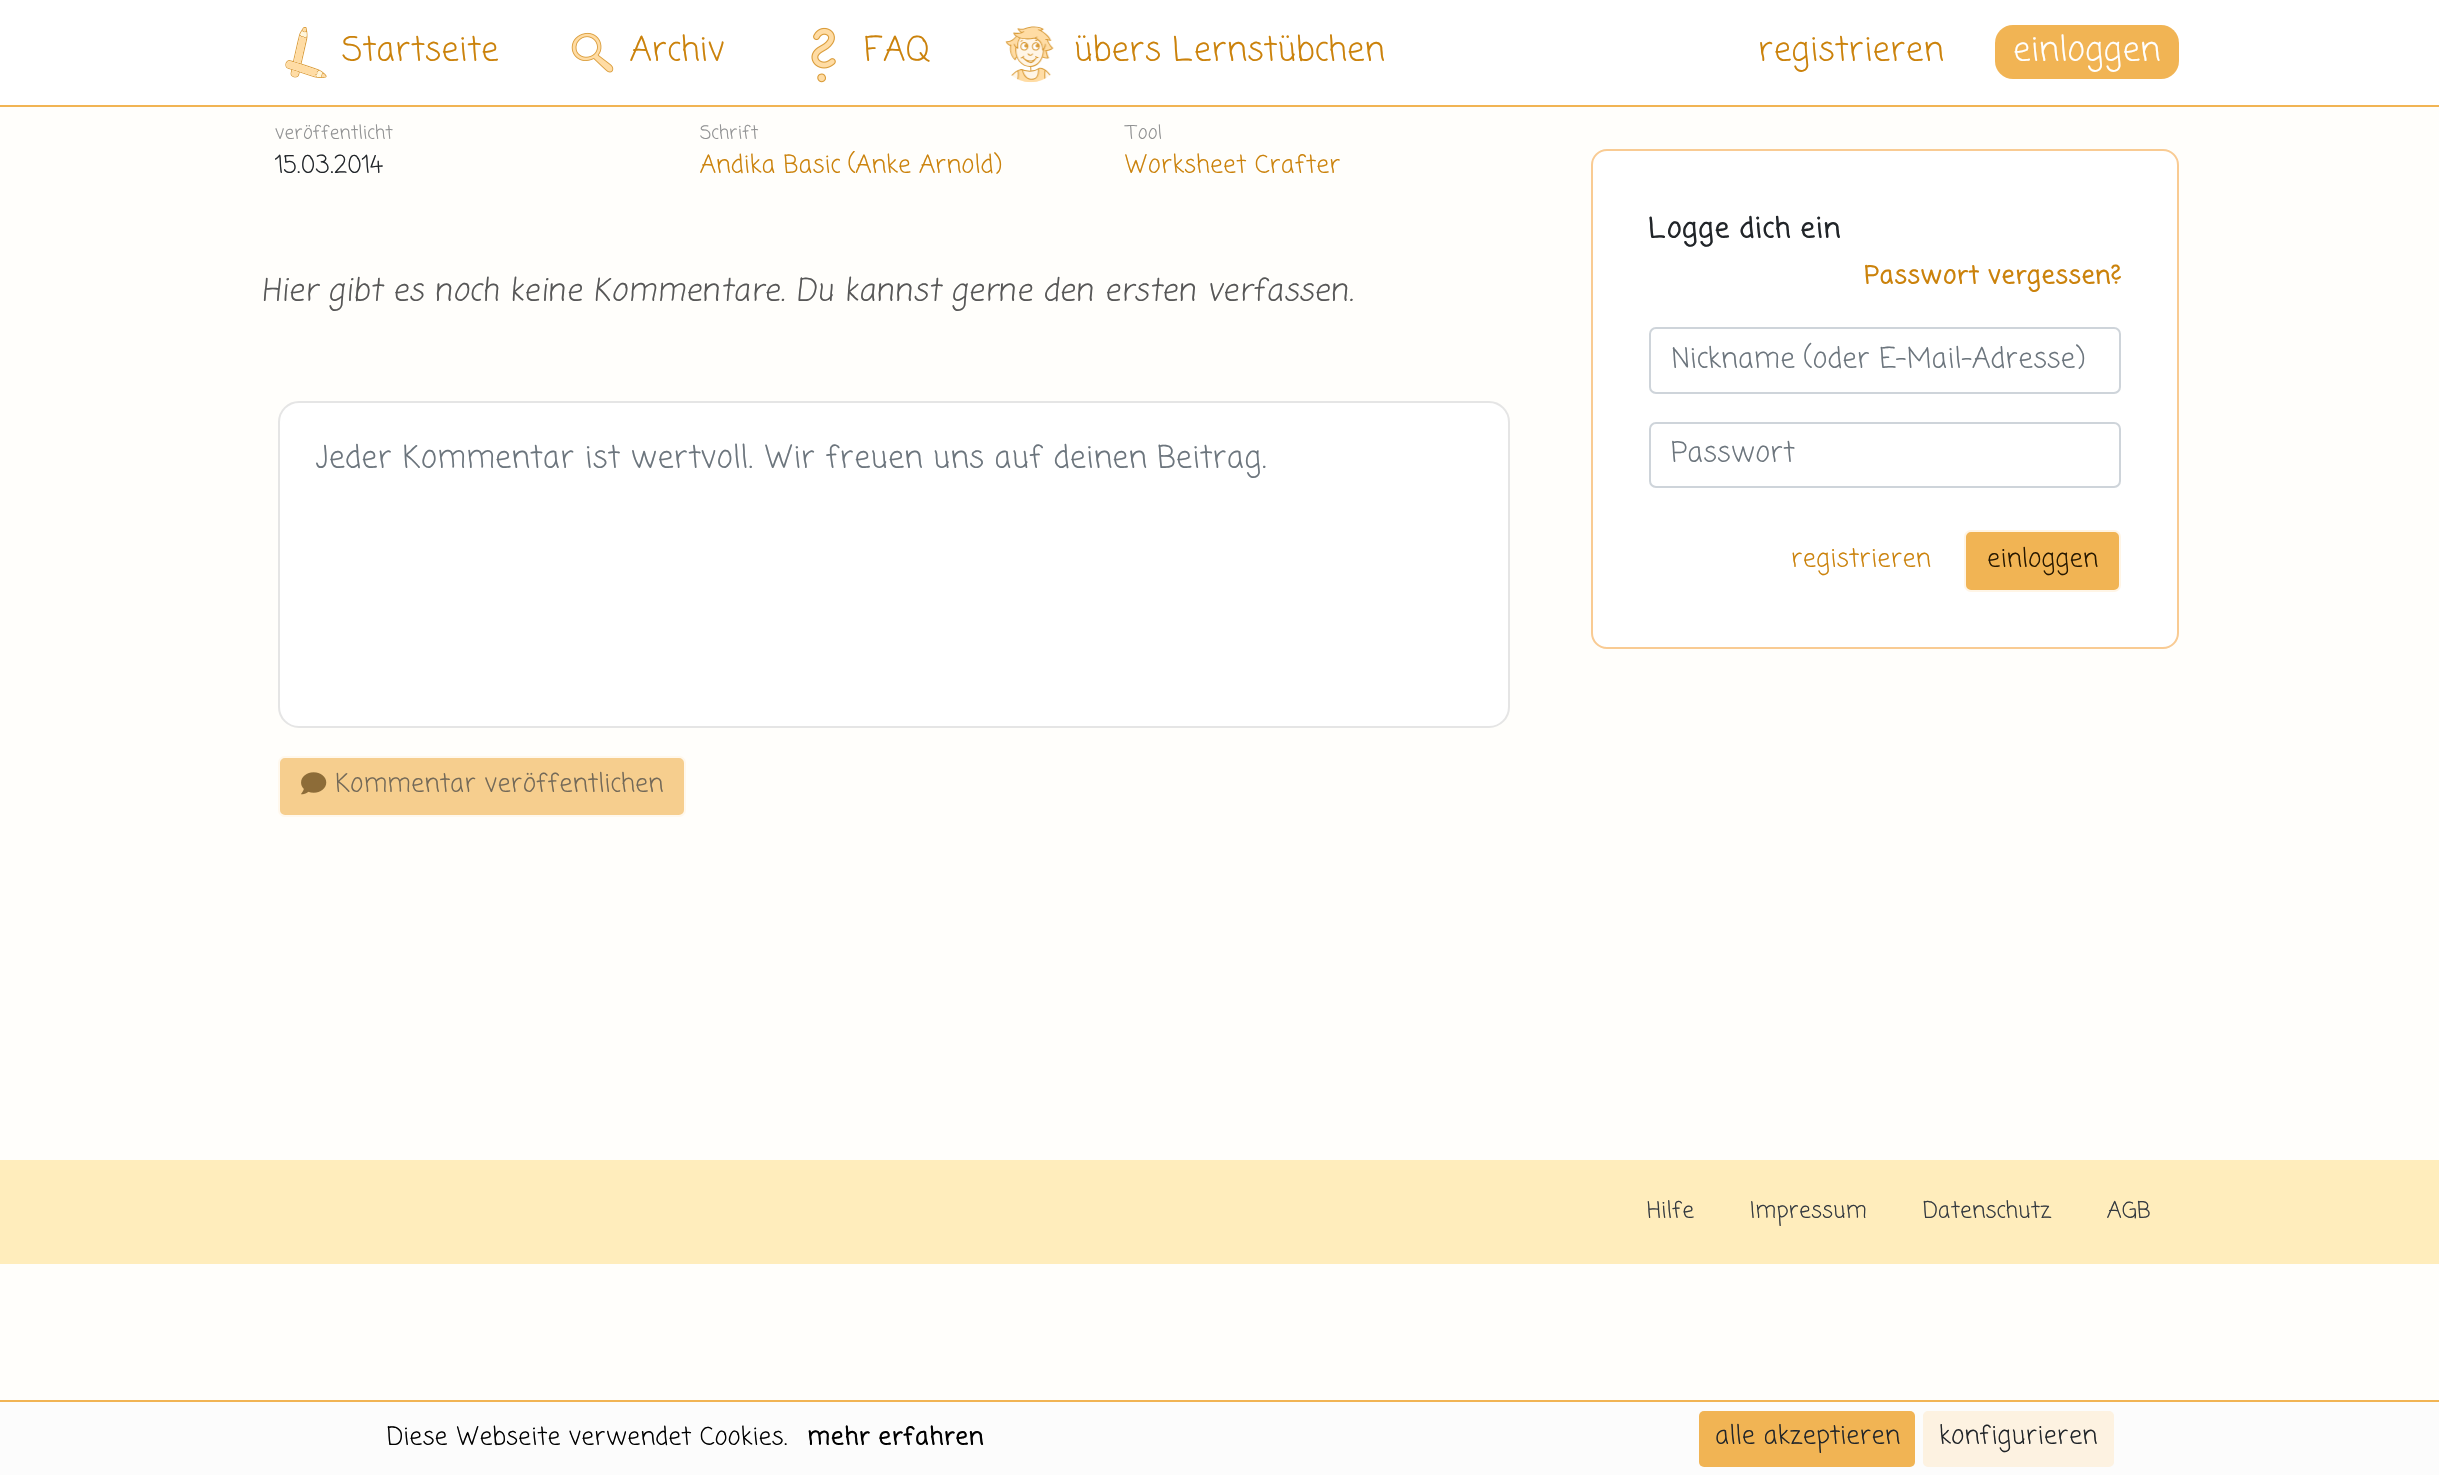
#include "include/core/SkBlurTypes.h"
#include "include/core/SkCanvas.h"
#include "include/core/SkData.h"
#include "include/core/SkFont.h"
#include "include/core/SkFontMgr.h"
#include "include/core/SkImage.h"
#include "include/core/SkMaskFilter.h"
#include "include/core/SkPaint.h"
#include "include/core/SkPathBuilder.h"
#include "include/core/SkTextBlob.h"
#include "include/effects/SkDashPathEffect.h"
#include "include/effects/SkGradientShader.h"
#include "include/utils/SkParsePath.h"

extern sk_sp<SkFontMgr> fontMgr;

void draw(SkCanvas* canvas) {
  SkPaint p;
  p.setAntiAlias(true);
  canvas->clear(SkColorSetRGB(255, 254, 251));
  p.setColor(SK_ColorWHITE);
  canvas->drawRect(SkRect::MakeLTRB(0, 0, 2439, 105), p);
  p.setColor(SkColorSetRGB(241, 180, 84));
  canvas->drawRect(SkRect::MakeLTRB(0, 105, 2439, 107), p);
  canvas->drawImageRect(SkImages::DeferredFromEncodedData(SkData::MakeFromFileName("images/1.png")), SkRect::MakeLTRB(285, 27, 327, 78), SkSamplingOptions());
  canvas->drawImageRect(SkImages::DeferredFromEncodedData(SkData::MakeFromFileName("images/2.png")), SkRect::MakeLTRB(571, 32, 614, 73), SkSamplingOptions());
  canvas->drawImageRect(SkImages::DeferredFromEncodedData(SkData::MakeFromFileName("images/3.png")), SkRect::MakeLTRB(811, 27, 836, 83), SkSamplingOptions());
  canvas->drawImageRect(SkImages::DeferredFromEncodedData(SkData::MakeFromFileName("images/4.png")), SkRect::MakeLTRB(1005, 26, 1054, 83), SkSamplingOptions());
  canvas->drawRoundRect(SkRect::MakeLTRB(1995, 25, 2179, 79), 18, 18, p);
  p.setColor(SK_ColorWHITE);
  canvas->drawRoundRect(SkRect::MakeLTRB(279, 402, 1509, 727), 20, 20, p);
  p.setStyle(SkPaint::kStroke_Style);
  p.setStrokeWidth(2);
  p.setColor(SkColorSetRGB(229, 229, 229));
  canvas->drawRoundRect(SkRect::MakeLTRB(279, 402, 1509, 727), 20, 20, p);
  p.setStyle(SkPaint::kFill_Style);
  p.setColor(SkColorSetRGB(246, 206, 142));
  canvas->drawRoundRect(SkRect::MakeLTRB(279, 757, 685, 816), 6, 6, p);
  p.setStyle(SkPaint::kStroke_Style);
  p.setColor(SkColorSetRGB(255, 248, 237));
  canvas->drawRoundRect(SkRect::MakeLTRB(279, 757, 685, 816), 6, 6, p);
  canvas->drawImageRect(SkImages::DeferredFromEncodedData(SkData::MakeFromFileName("images/5.png")), SkRect::MakeLTRB(301, 772, 327, 795), SkSamplingOptions());
  p.setStyle(SkPaint::kFill_Style);
  p.setColor(SK_ColorWHITE);
  canvas->drawRoundRect(SkRect::MakeLTRB(1592, 150, 2178, 648), 15, 15, p);
  p.setStyle(SkPaint::kStroke_Style);
  p.setColor(SkColorSetRGB(249, 203, 147));
  canvas->drawRoundRect(SkRect::MakeLTRB(1592, 150, 2178, 648), 15, 15, p);
  p.setColor(SkColorSetRGB(206, 212, 218));
  canvas->drawRoundRect(SkRect::MakeLTRB(1650, 328, 2120, 393), 6, 6, p);
  canvas->drawRoundRect(SkRect::MakeLTRB(1650, 423, 2120, 487), 6, 6, p);
  p.setStyle(SkPaint::kFill_Style);
  p.setColor(SkColorSetRGB(241, 180, 84));
  canvas->drawRoundRect(SkRect::MakeLTRB(1965, 531, 2120, 591), 6, 6, p);
  p.setStyle(SkPaint::kStroke_Style);
  p.setColor(SkColorSetRGB(255, 245, 230));
  canvas->drawRoundRect(SkRect::MakeLTRB(1965, 531, 2120, 591), 6, 6, p);
  p.setStyle(SkPaint::kFill_Style);
  p.setColor(SkColorSetRGB(255, 237, 188));
  canvas->drawRect(SkRect::MakeLTRB(0, 1160, 2439, 1264), p);
  p.setColor(SkColorSetRGB(252, 252, 252));
  canvas->drawRect(SkRect::MakeLTRB(0, 1402, 2439, 1475), p);
  p.setColor(SkColorSetRGB(241, 180, 84));
  canvas->drawRect(SkRect::MakeLTRB(0, 1400, 2439, 1402), p);
  canvas->drawRoundRect(SkRect::MakeLTRB(1699, 1411, 1915, 1467), 5, 5, p);
  p.setColor(SkColorSetRGB(253, 242, 225));
  canvas->drawRoundRect(SkRect::MakeLTRB(1924, 1412, 2113, 1466), 4, 4, p);
  p.setStyle(SkPaint::kStroke_Style);
  canvas->drawRoundRect(SkRect::MakeLTRB(1924, 1412, 2113, 1466), 4, 4, p);
  SkFont font1(fontMgr->matchFamilyStyle("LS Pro", SkFontStyle::Normal()), 33.5f);
  font1.setSubpixel(true);
  p.setStyle(SkPaint::kFill_Style);
  p.setColor(SkColorSetRGB(203, 130, 11));
  canvas->drawString("Startseite", 342, 61, font1, p);
  canvas->drawString("Archiv", 630, 61, font1, p);
  canvas->drawString("FAQ", 864, 61, font1, p);
  canvas->drawString("übers Lernstübchen", 1074, 61, font1, p);
  canvas->drawString("registrieren", 1758, 61, font1, p);
  p.setColor(SK_ColorWHITE);
  canvas->drawString("einloggen", 2013, 61, font1, p);
  SkFont font2(fontMgr->matchFamilyStyle("LS Pro", SkFontStyle::Normal()), 18.5f);
  font2.setSubpixel(true);
  p.setColor(SkColorSetRGB(144, 145, 146));
  canvas->drawString("veröffentlicht", 275, 139, font2, p);
  SkFont font3(fontMgr->matchFamilyStyle("LS Pro", SkFontStyle::Normal()), 24.6f);
  font3.setSubpixel(true);
  p.setColor(SkColorSetRGB(33, 37, 41));
  canvas->drawString("15.03.2014", 275, 173, font3, p);
  p.setColor(SkColorSetRGB(144, 145, 146));
  canvas->drawString("Schrift", 700, 139, font2, p);
  p.setColor(SkColorSetRGB(203, 130, 11));
  canvas->drawString("Andika Basic (Anke Arnold)", 700, 173, font3, p);
  p.setColor(SkColorSetRGB(144, 145, 146));
  canvas->drawString("Tool", 1124, 139, font2, p);
  p.setColor(SkColorSetRGB(203, 130, 11));
  canvas->drawString("Worksheet Crafter", 1124, 173, font3, p);
  SkFont font4(fontMgr->matchFamilyStyle("LS Pro", SkFontStyle::Italic()), 30.8f);
  font4.setSubpixel(true);
  p.setColor(SkColorSetRGB(87, 87, 87));
  canvas->drawString("Hier gibt es noch keine Kommentare. Du kannst gerne den ersten verfassen.", 261, 301, font4, p);
  SkFont font5(fontMgr->matchFamilyStyle("LS Pro", SkFontStyle::Normal()), 30.8f);
  font5.setSubpixel(true);
  p.setColor(SkColorSetRGB(108, 117, 125));
  canvas->drawString("Jeder Kommentar ist wertvoll. Wir freuen uns auf deinen Beitrag.", 316, 468, font5, p);
  SkFont font6(fontMgr->matchFamilyStyle("LS Pro", SkFontStyle::Normal()), 25.25f);
  font6.setSubpixel(true);
  p.setColor(SkColorSetRGB(115, 105, 88));
  canvas->drawString("Kommentar veröffentlichen", 335, 792, font6, p);
  SkFont font7(fontMgr->matchFamilyStyle("LS Pro", SkFontStyle::Bold()), 28);
  font7.setSubpixel(true);
  p.setColor(SkColorSetRGB(33, 37, 41));
  canvas->drawString("Logge dich ein", 1648, 238, font7, p);
  SkFont font8(fontMgr->matchFamilyStyle("LS Pro", SkFontStyle::Bold()), 25.25f);
  font8.setSubpixel(true);
  p.setColor(SkColorSetRGB(203, 130, 11));
  canvas->drawString("Passwort vergessen?", 1864, 284, font8, p);
  SkFont font9(fontMgr->matchFamilyStyle("LS Pro", SkFontStyle::Normal()), 28);
  font9.setSubpixel(true);
  p.setColor(SkColorSetRGB(108, 117, 125));
  canvas->drawString("Nickname (oder E-Mail-Adresse)", 1671, 368, font9, p);
  canvas->drawString("Passwort", 1671, 462, font9, p);
  p.setColor(SkColorSetRGB(203, 130, 11));
  canvas->drawString("registrieren", 1791, 567, font6, p);
  p.setColor(SkColorSetRGB(39, 24, 0));
  canvas->drawString("einloggen", 1987, 567, font6, p);
  SkFont font10(fontMgr->matchFamilyStyle("LS Pro", SkFontStyle::Normal()), 22.5f);
  font10.setSubpixel(true);
  p.setColor(SkColorSetRGB(52, 58, 64));
  canvas->drawString("Hilfe", 1647, 1218, font10, p);
  canvas->drawString("Impressum", 1750, 1218, font10, p);
  canvas->drawString("Datenschutz", 1923, 1218, font10, p);
  canvas->drawString("AGB", 2107, 1218, font10, p);
  p.setColor(SK_ColorBLACK);
  canvas->drawString("Diese Webseite verwendet Cookies.", 387, 1445, font3, p);
  SkFont font11(fontMgr->matchFamilyStyle("LS Pro", SkFontStyle::Bold()), 24.6f);
  font11.setSubpixel(true);
  canvas->drawString("mehr erfahren", 807, 1445, font11, p);
  p.setColor(SkColorSetRGB(33, 37, 41));
  canvas->drawString("alle akzeptieren", 1715, 1444, font6, p);
  canvas->drawString("konfigurieren", 1939, 1444, font6, p);
}
